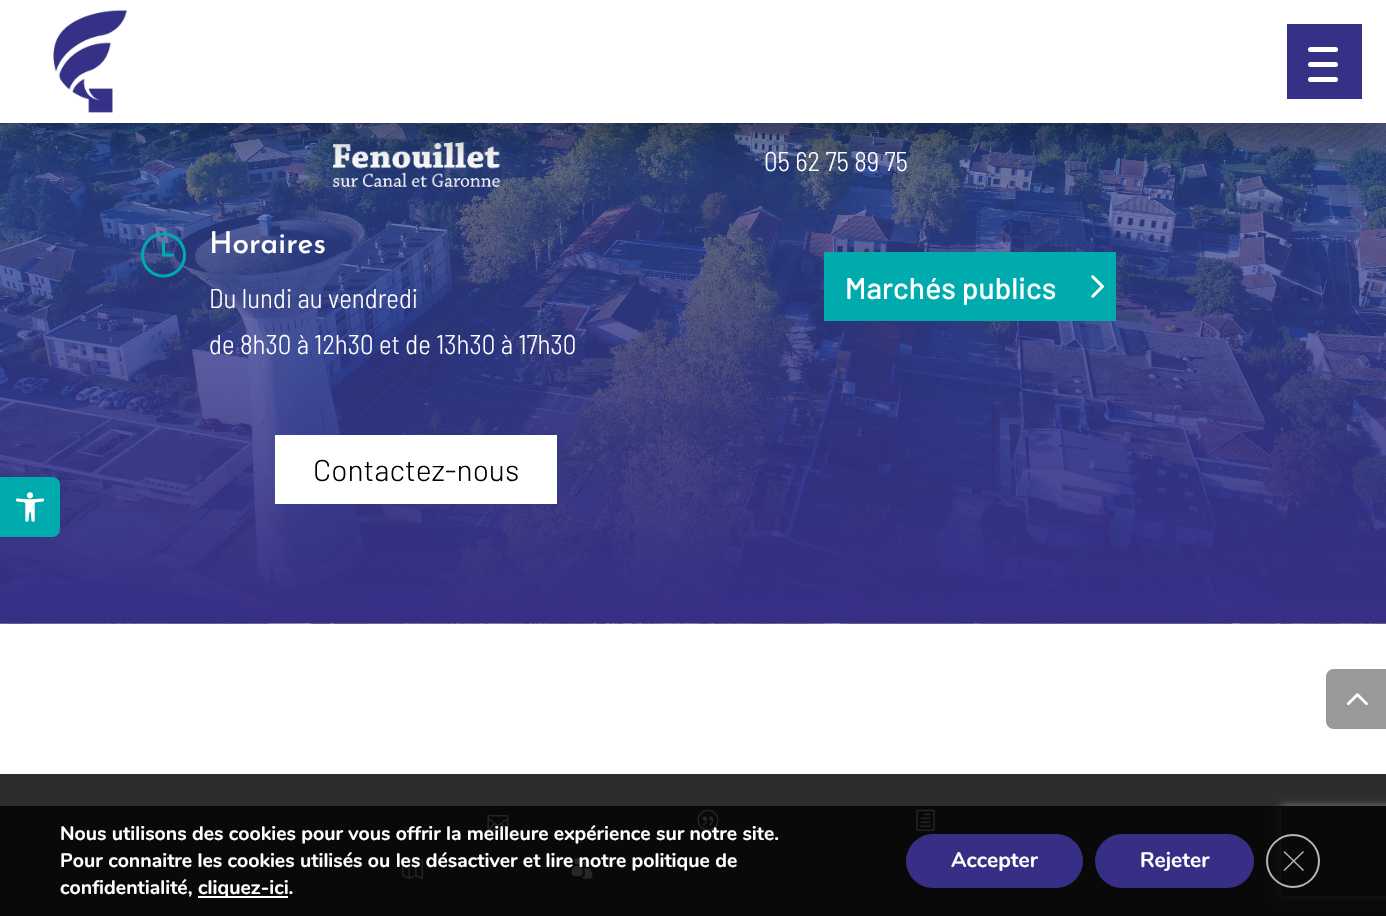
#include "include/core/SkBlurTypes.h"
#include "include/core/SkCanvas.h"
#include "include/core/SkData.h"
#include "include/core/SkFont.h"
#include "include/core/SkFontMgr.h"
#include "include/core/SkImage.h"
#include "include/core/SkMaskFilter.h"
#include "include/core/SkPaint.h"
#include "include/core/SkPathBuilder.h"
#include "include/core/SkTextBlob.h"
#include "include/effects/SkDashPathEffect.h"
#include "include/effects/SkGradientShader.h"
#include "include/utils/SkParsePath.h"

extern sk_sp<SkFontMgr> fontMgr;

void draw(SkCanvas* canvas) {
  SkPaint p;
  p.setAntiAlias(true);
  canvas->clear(SK_ColorWHITE);
  canvas->drawImageRect(SkImages::DeferredFromEncodedData(SkData::MakeFromFileName("images/2.png")), SkRect::MakeLTRB(0, 123, 1386, 624), SkSamplingOptions());
  canvas->drawImageRect(SkImages::DeferredFromEncodedData(SkData::MakeFromFileName("images/3.png")), SkRect::MakeLTRB(332, 142, 500, 187), SkSamplingOptions());
  p.setColor(SkColorSetARGB(115, 0, 0, 0));
  p.setMaskFilter(SkMaskFilter::MakeBlur(kNormal_SkBlurStyle, 22.5f));
  canvas->drawRect(SkRect::MakeLTRB(0, 9, 1386, 132), p);
  p.setMaskFilter(nullptr);
  p.setColor(SK_ColorWHITE);
  canvas->drawRect(SkRect::MakeLTRB(0, 0, 1386, 123), p);
  canvas->drawImageRect(SkImages::DeferredFromEncodedData(SkData::MakeFromFileName("images/1.png")), SkRect::MakeLTRB(53, 10, 127, 113), SkSamplingOptions());
  p.setColor(SkColorSetRGB(53, 49, 134));
  canvas->drawRect(SkRect::MakeLTRB(1287, 24, 1362, 99), p);
  p.setColor(SK_ColorWHITE);
  canvas->drawRoundRect(SkRect::MakeLTRB(1308, 47, 1338, 52), 2.5f, 2.5f, p);
  canvas->drawRoundRect(SkRect::MakeLTRB(1308, 62, 1338, 67), 2.5f, 2.5f, p);
  canvas->drawRoundRect(SkRect::MakeLTRB(1308, 77, 1338, 82), 2.5f, 2.5f, p);
  canvas->drawImageRect(SkImages::DeferredFromEncodedData(SkData::MakeFromFileName("images/4.png")), SkRect::MakeLTRB(141, 232, 186, 278), SkSamplingOptions());
  canvas->drawRect(SkRect::MakeLTRB(275, 435, 557, 504), p);
  p.setColor(SkColorSetRGB(0, 171, 174));
  canvas->drawRect(SkRect::MakeLTRB(824, 252, 1116, 321), p);
  canvas->drawImageRect(SkImages::DeferredFromEncodedData(SkData::MakeFromFileName("images/5.png")), SkRect::MakeLTRB(1091, 275, 1104, 298), SkSamplingOptions());
  p.setColor(SkColorSetRGB(153, 153, 153));
  canvas->drawPath(SkPathBuilder().moveTo(1334, 669).lineTo(1386, 669).lineTo(1386, 729).lineTo(1334, 729).cubicTo(1329.5f, 729, 1326, 725.5f, 1326, 721).lineTo(1326, 677).cubicTo(1326, 672.5f, 1329.5f, 669, 1334, 669).close().detach(), p);
  canvas->drawImageRect(SkImages::DeferredFromEncodedData(SkData::MakeFromFileName("images/6.png")), SkRect::MakeLTRB(1346, 693, 1368, 706), SkSamplingOptions());
  p.setColor(SkColorSetRGB(45, 45, 45));
  canvas->drawRect(SkRect::MakeLTRB(0, 774, 1386, 916), p);
  canvas->drawImageRect(SkImages::DeferredFromEncodedData(SkData::MakeFromFileName("images/7.png")), SkRect::MakeLTRB(487, 815, 509, 831), SkSamplingOptions());
  canvas->drawImageRect(SkImages::DeferredFromEncodedData(SkData::MakeFromFileName("images/8.png")), SkRect::MakeLTRB(697, 809, 719, 831), SkSamplingOptions());
  canvas->drawImageRect(SkImages::DeferredFromEncodedData(SkData::MakeFromFileName("images/9.png")), SkRect::MakeLTRB(916, 809, 935, 831), SkSamplingOptions());
  canvas->drawImageRect(SkImages::DeferredFromEncodedData(SkData::MakeFromFileName("images/10.png")), SkRect::MakeLTRB(402, 857, 423, 879), SkSamplingOptions());
  canvas->drawImageRect(SkImages::DeferredFromEncodedData(SkData::MakeFromFileName("images/11.png")), SkRect::MakeLTRB(571, 857, 593, 879), SkSamplingOptions());
  p.setColor(SkColorSetARGB(26, 0, 0, 0));
  p.setMaskFilter(SkMaskFilter::MakeBlur(kNormal_SkBlurStyle, 7.5f));
  canvas->drawRoundRect(SkRect::MakeLTRB(0, 477, 60, 537), 8, 8, p);
  p.setMaskFilter(nullptr);
  p.setColor(SkColorSetRGB(0, 171, 174));
  canvas->drawPath(SkPathBuilder().moveTo(0, 477).lineTo(52, 477).cubicTo(56.5f, 477, 60, 480.5f, 60, 485).lineTo(60, 529).cubicTo(60, 533.5f, 56.5f, 537, 52, 537).lineTo(0, 537).close().detach(), p);
  canvas->drawImageRect(SkImages::DeferredFromEncodedData(SkData::MakeFromFileName("images/12.png")), SkRect::MakeLTRB(16, 492, 45, 522), SkSamplingOptions());
  canvas->save();
  canvas->clipPath(SkPathBuilder(SkPathFillType::kEvenOdd).moveTo(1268, 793).lineTo(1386, 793).lineTo(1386, 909).lineTo(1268, 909).close().moveTo(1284, 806).lineTo(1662, 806).cubicTo(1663.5f, 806, 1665, 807.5f, 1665, 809).lineTo(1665, 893).cubicTo(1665, 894.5f, 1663.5f, 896, 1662, 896).lineTo(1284, 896).cubicTo(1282.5f, 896, 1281, 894.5f, 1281, 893).lineTo(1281, 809).cubicTo(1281, 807.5f, 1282.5f, 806, 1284, 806).close().detach(), true);
  p.setColor(SkColorSetRGB(128, 128, 128));
  p.setMaskFilter(SkMaskFilter::MakeBlur(kNormal_SkBlurStyle, 4));
  canvas->drawRoundRect(SkRect::MakeLTRB(1281, 806, 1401, 896), 3, 3, p);
  p.setMaskFilter(nullptr);
  canvas->restore();
  p.setColor(SkColorSetARGB(204, 0, 0, 0));
  canvas->drawRect(SkRect::MakeLTRB(0, 806, 1386, 916), p);
  p.setColor(SK_ColorWHITE);
  canvas->drawRect(SkRect::MakeLTRB(198, 896, 288, 898), p);
  p.setColor(SkColorSetRGB(55, 47, 134));
  canvas->drawRoundRect(SkRect::MakeLTRB(906, 834, 1083, 888), 27, 27, p);
  canvas->drawRoundRect(SkRect::MakeLTRB(1095, 834, 1254, 888), 27, 27, p);
  p.setStyle(SkPaint::kStroke_Style);
  p.setStrokeWidth(2);
  p.setColor(SkColorSetARGB(179, 255, 255, 255));
  canvas->drawCircle(1293, 861, 26, p);
  p.setStyle(SkPaint::kFill_Style);
  p.setColor(SkColorSetRGB(181, 181, 181));
  canvas->drawPath(SkPathBuilder().moveTo(1303, 851).lineTo(1304, 852).lineTo(1284.5f, 871).lineTo(1283.5f, 870).close().detach(), p);
  canvas->drawPath(SkPathBuilder().moveTo(1283.5f, 852).lineTo(1284.5f, 851).lineTo(1304, 870).lineTo(1303, 871).close().detach(), p);
  SkFont font1(fontMgr->matchFamilyStyle("Barlow Semi Condensed", SkFontStyle(300, SkFontStyle::kNormal_Width, SkFontStyle::kUpright_Slant)), 27);
  font1.setSubpixel(true);
  p.setColor(SK_ColorWHITE);
  canvas->drawString("05 62 75 89 75", 764, 171, font1, p);
  SkFont font2(fontMgr->matchFamilyStyle("Josefin Sans", SkFontStyle(500, SkFontStyle::kNormal_Width, SkFontStyle::kUpright_Slant)), 30);
  font2.setSubpixel(true);
  canvas->drawString("Horaires", 209, 253, font2, p);
  canvas->drawString("Du lundi au vendredi", 209, 308, font1, p);
  canvas->drawString("de 8h30 à 12h30 et de 13h30 à 17h30", 209, 354, font1, p);
  SkFont font3(fontMgr->matchFamilyStyle("Barlow", SkFontStyle(300, SkFontStyle::kNormal_Width, SkFontStyle::kUpright_Slant)), 30);
  font3.setSubpixel(true);
  p.setColor(SK_ColorBLACK);
  canvas->drawString("Contactez-nous", 313, 481, font3, p);
  SkFont font4(fontMgr->matchFamilyStyle("Barlow", SkFontStyle(500, SkFontStyle::kNormal_Width, SkFontStyle::kUpright_Slant)), 30);
  font4.setSubpixel(true);
  p.setColor(SK_ColorWHITE);
  canvas->drawString("Marchés publics", 845, 299, font4, p);
  SkFont font5(fontMgr->matchFamilyStyle("Nunito", SkFontStyle::Bold()), 19.5f);
  font5.setSubpixel(true);
  canvas->drawString("Nous utilisons des cookies pour vous offrir la meilleure expérience sur notre site.", 60, 840, font5, p);
  canvas->drawString("Pour connaitre les cookies utilisés ou les désactiver et lire notre politique de", 60, 867, font5, p);
  canvas->drawString("confidentialité,", 60, 894, font5, p);
  canvas->drawString("cliquez-ici.", 198, 894, font5, p);
  SkFont font6(fontMgr->matchFamilyStyle("Nunito", SkFontStyle::Bold()), 21);
  font6.setSubpixel(true);
  canvas->drawString("Accepter", 951, 867, font6, p);
  canvas->drawString("Rejeter", 1140, 867, font6, p);
}
